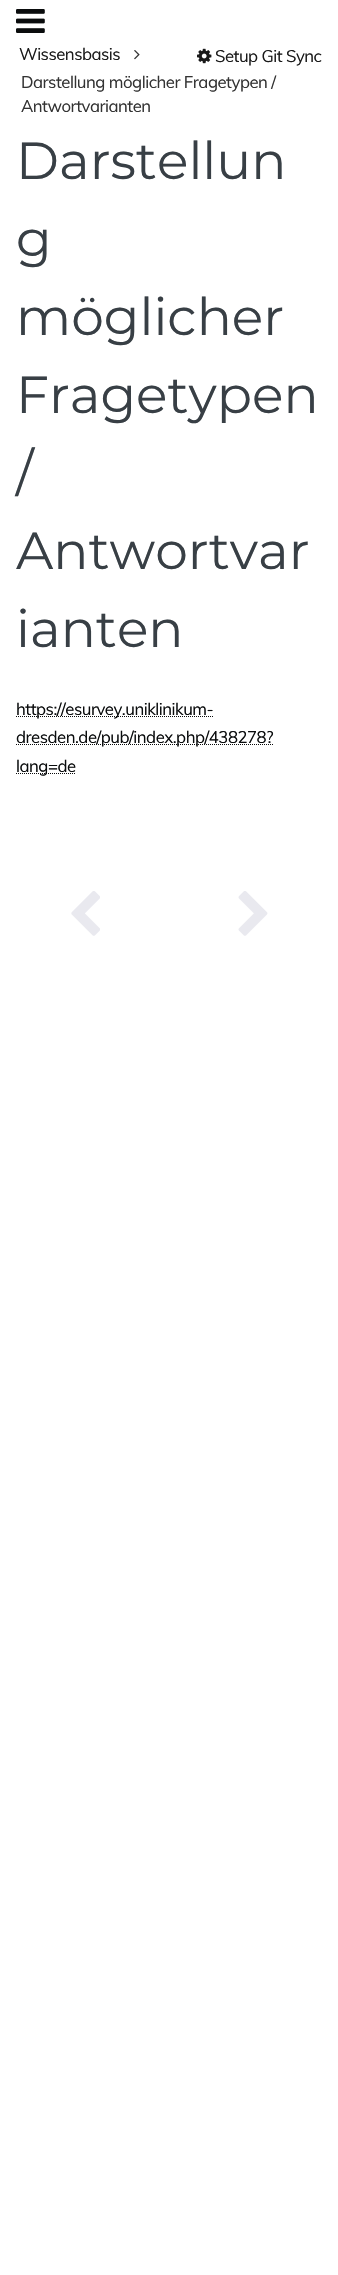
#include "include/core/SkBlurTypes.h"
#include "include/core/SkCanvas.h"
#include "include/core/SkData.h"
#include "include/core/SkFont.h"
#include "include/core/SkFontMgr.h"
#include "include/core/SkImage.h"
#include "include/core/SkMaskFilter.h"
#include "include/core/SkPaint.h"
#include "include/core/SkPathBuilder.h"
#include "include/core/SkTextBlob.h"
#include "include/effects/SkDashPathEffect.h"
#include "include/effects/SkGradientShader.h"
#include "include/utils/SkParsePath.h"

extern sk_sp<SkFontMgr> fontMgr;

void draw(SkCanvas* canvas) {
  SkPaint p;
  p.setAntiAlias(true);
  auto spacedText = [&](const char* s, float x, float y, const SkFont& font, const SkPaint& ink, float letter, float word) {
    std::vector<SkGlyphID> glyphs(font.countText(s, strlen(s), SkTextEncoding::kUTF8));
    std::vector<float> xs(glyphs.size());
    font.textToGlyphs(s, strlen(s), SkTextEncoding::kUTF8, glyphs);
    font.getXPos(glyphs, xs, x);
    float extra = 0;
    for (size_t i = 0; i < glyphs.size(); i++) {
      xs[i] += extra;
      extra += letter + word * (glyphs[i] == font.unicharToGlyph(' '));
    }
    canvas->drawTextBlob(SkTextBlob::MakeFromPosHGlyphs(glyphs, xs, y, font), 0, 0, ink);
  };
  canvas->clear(SK_ColorWHITE);
  canvas->drawImageRect(SkImages::DeferredFromEncodedData(SkData::MakeFromFileName("images/1.png")), SkRect::MakeLTRB(16, 9, 45, 33), SkSamplingOptions());
  canvas->drawImageRect(SkImages::DeferredFromEncodedData(SkData::MakeFromFileName("images/2.png")), SkRect::MakeLTRB(134, 50, 140, 60), SkSamplingOptions());
  canvas->drawImageRect(SkImages::DeferredFromEncodedData(SkData::MakeFromFileName("images/3.png")), SkRect::MakeLTRB(197, 48, 212, 64), SkSamplingOptions());
  p.setStyle(SkPaint::kStroke_Style);
  p.setStrokeWidth(1);
  p.setColor(SkColorSetRGB(10, 12, 13));
  p.setPathEffect(SkDashPathEffect::Make({{1, 1}}, 0));
  canvas->drawPath(SkPathBuilder().moveTo(16, 716.5f).lineTo(214, 716.5f).detach(), p);
  p.setPathEffect(nullptr);
  p.setPathEffect(SkDashPathEffect::Make({{1, 1}}, 0));
  canvas->drawPath(SkPathBuilder().moveTo(16, 744.5f).lineTo(274, 744.5f).detach(), p);
  p.setPathEffect(nullptr);
  p.setPathEffect(SkDashPathEffect::Make({{1, 1}}, 0));
  canvas->drawPath(SkPathBuilder().moveTo(16, 773.5f).lineTo(76, 773.5f).detach(), p);
  p.setPathEffect(nullptr);
  canvas->drawImageRect(SkImages::DeferredFromEncodedData(SkData::MakeFromFileName("images/4.png")), SkRect::MakeLTRB(71, 891, 100, 936), SkSamplingOptions());
  canvas->drawImageRect(SkImages::DeferredFromEncodedData(SkData::MakeFromFileName("images/5.png")), SkRect::MakeLTRB(238, 891, 268, 936), SkSamplingOptions());
  SkFont font1(fontMgr->matchFamilyStyle("Muli", SkFontStyle::Normal()), 16.75f);
  font1.setSubpixel(true);
  p.setStyle(SkPaint::kFill_Style);
  p.setColor(SkColorSetRGB(26, 26, 26));
  spacedText("Wissensbasis", 19, 60, font1, p, -0.5f, 0);
  p.setColor(SkColorSetRGB(51, 51, 51));
  spacedText("Darstellung möglicher Fragetypen /", 21, 88, font1, p, -0.5f, 0);
  spacedText("Antwortvarianten", 21, 112, font1, p, -0.5f, 0);
  p.setColor(SkColorSetRGB(26, 26, 26));
  spacedText("Setup Git Sync", 215, 62, font1, p, -0.5f, 0);
  SkFont font2(fontMgr->matchFamilyStyle("Montserrat", SkFontStyle(100, SkFontStyle::kNormal_Width, SkFontStyle::kUpright_Slant)), 52);
  font2.setSubpixel(true);
  p.setColor(SkColorSetRGB(56, 63, 69));
  canvas->drawString("Darstellun", 16, 179, font2, p);
  canvas->drawString("g", 16, 257, font2, p);
  canvas->drawString("möglicher", 16, 335, font2, p);
  canvas->drawString("Fragetypen", 16, 413, font2, p);
  canvas->drawString("/", 16, 491, font2, p);
  canvas->drawString("Antwortvar", 16, 569, font2, p);
  canvas->drawString("ianten", 16, 647, font2, p);
  p.setColor(SkColorSetRGB(10, 12, 13));
  spacedText("https://esurvey.uniklinikum-", 16, 715, font1, p, -0.5f, 0);
  spacedText("dresden.de/pub/index.php/438278?", 16, 743, font1, p, -0.5f, 0);
  spacedText("lang=de", 16, 772, font1, p, -0.5f, 0);
}
